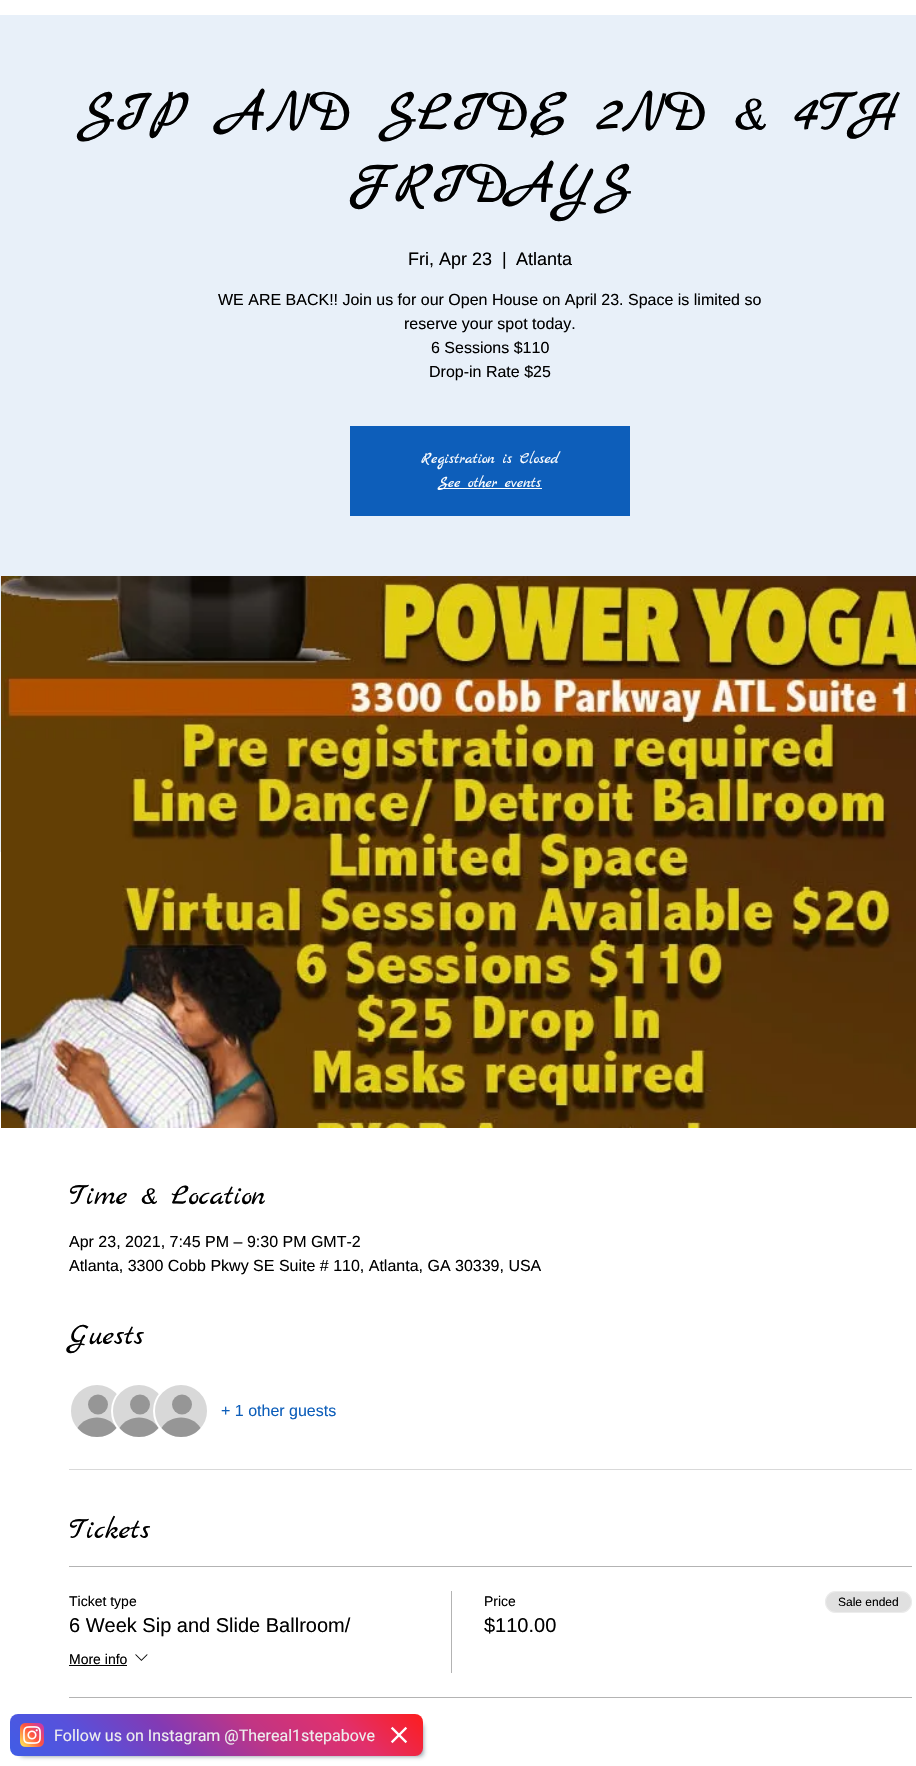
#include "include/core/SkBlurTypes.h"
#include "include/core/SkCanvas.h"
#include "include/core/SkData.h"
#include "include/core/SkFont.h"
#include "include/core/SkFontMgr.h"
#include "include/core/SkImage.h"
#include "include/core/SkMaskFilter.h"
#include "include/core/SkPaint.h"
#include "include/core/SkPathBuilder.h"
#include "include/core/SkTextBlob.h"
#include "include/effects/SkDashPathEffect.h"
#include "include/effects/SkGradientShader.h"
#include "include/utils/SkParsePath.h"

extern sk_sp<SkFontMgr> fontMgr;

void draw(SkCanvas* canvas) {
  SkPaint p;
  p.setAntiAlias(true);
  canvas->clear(SK_ColorWHITE);
  p.setColor(SkColorSetRGB(232, 240, 249));
  canvas->drawRect(SkRect::MakeLTRB(0, 15, 916, 852), p);
  p.setColor(SkColorSetRGB(13, 94, 186));
  canvas->drawRect(SkRect::MakeLTRB(350, 426, 630, 516), p);
  p.setColor(SK_ColorWHITE);
  canvas->drawRect(SkRect::MakeLTRB(438, 488, 542, 489), p);
  canvas->drawImageRect(SkImages::DeferredFromEncodedData(SkData::MakeFromFileName("images/1.png")), SkRect::MakeLTRB(1, 576, 916, 1128), SkSamplingOptions());
  p.setColor(SkColorSetRGB(216, 216, 216));
  canvas->drawCircle(97, 1411, 27, p);
  p.setStyle(SkPaint::kStroke_Style);
  p.setStrokeWidth(2);
  p.setColor(SK_ColorWHITE);
  canvas->drawCircle(97, 1411, 27, p);
  p.setStyle(SkPaint::kFill_Style);
  p.setColor(SkColorSetRGB(150, 150, 150));
  canvas->drawCircle(98, 1404.5f, 10, p);
  canvas->drawPath(SkPathBuilder().moveTo(116.5f, 1428).cubicTo(106.5f, 1440, 87.5f, 1440, 77.5f, 1428).cubicTo(86, 1414, 108, 1414, 116.5f, 1428).close().detach(), p);
  p.setColor(SkColorSetRGB(216, 216, 216));
  canvas->drawCircle(139, 1411, 27, p);
  p.setStyle(SkPaint::kStroke_Style);
  p.setColor(SK_ColorWHITE);
  canvas->drawCircle(139, 1411, 27, p);
  p.setStyle(SkPaint::kFill_Style);
  p.setColor(SkColorSetRGB(150, 150, 150));
  canvas->drawCircle(140, 1404.5f, 10, p);
  canvas->drawPath(SkPathBuilder().moveTo(158.5f, 1428).cubicTo(148.5f, 1440, 129.5f, 1440, 119.5f, 1428).cubicTo(128, 1414, 150, 1414, 158.5f, 1428).close().detach(), p);
  p.setColor(SkColorSetRGB(216, 216, 216));
  canvas->drawCircle(181, 1411, 27, p);
  p.setStyle(SkPaint::kStroke_Style);
  p.setColor(SK_ColorWHITE);
  canvas->drawCircle(181, 1411, 27, p);
  p.setStyle(SkPaint::kFill_Style);
  p.setColor(SkColorSetRGB(150, 150, 150));
  canvas->drawCircle(182, 1404.5f, 10, p);
  canvas->drawPath(SkPathBuilder().moveTo(200.5f, 1428).cubicTo(190.5f, 1440, 171.5f, 1440, 161.5f, 1428).cubicTo(170, 1414, 192, 1414, 200.5f, 1428).close().detach(), p);
  p.setColor(SkColorSetRGB(217, 217, 217));
  canvas->drawRect(SkRect::MakeLTRB(69, 1469, 912, 1470), p);
  p.setColor(SkColorSetRGB(179, 179, 179));
  canvas->drawRect(SkRect::MakeLTRB(69, 1566, 912, 1567), p);
  canvas->drawRect(SkRect::MakeLTRB(69, 1697, 912, 1698), p);
  p.setColor(SK_ColorBLACK);
  canvas->drawRect(SkRect::MakeLTRB(69, 1665, 127, 1666), p);
  canvas->drawImageRect(SkImages::DeferredFromEncodedData(SkData::MakeFromFileName("images/2.png")), SkRect::MakeLTRB(135, 1654, 148, 1661), SkSamplingOptions());
  p.setColor(SkColorSetRGB(179, 179, 179));
  canvas->drawRect(SkRect::MakeLTRB(451, 1591, 452, 1673), p);
  p.setColor(SkColorSetRGB(224, 224, 224));
  canvas->drawRoundRect(SkRect::MakeLTRB(825, 1591, 912, 1613), 11, 11, p);
  p.setStyle(SkPaint::kStroke_Style);
  p.setStrokeWidth(1);
  p.setColor(SkColorSetARGB(102, 255, 255, 255));
  canvas->drawRoundRect(SkRect::MakeLTRB(825.5f, 1591.5f, 911.5f, 1612.5f), 10.5f, 10.5f, p);
  p.setStyle(SkPaint::kFill_Style);
  p.setColor(SkColorSetARGB(153, 34, 60, 80));
  p.setMaskFilter(SkMaskFilter::MakeBlur(kNormal_SkBlurStyle, 2.5f));
  canvas->drawRoundRect(SkRect::MakeLTRB(20, 1724, 423, 1756), 3, 3, p);
  p.setMaskFilter(nullptr);
  {
    const SkColor colors[] = {SkColorSetRGB(64, 93, 230), SkColorSetRGB(88, 81, 219), SkColorSetRGB(131, 58, 180), SkColorSetRGB(193, 53, 132), SkColorSetRGB(225, 48, 108), SkColorSetRGB(253, 29, 29)};
    const float stops[] = {0, 0.2f, 0.4f, 0.6f, 0.8f, 1};
    const SkPoint ends[] = {{103, 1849}, {330, 1621}};
    p.setShader(SkGradientShader::MakeLinear(ends, colors, stops, 6, SkTileMode::kClamp));
    p.setAlpha(255);
  }
  canvas->drawRoundRect(SkRect::MakeLTRB(10, 1714, 423, 1756), 8, 8, p);
  canvas->drawImageRect(SkImages::DeferredFromEncodedData(SkData::MakeFromFileName("images/3.png")), SkRect::MakeLTRB(20, 1723, 44, 1747), SkSamplingOptions());
  canvas->drawImageRect(SkImages::DeferredFromEncodedData(SkData::MakeFromFileName("images/4.png")), SkRect::MakeLTRB(390, 1726, 408, 1744), SkSamplingOptions());
  SkFont font1(fontMgr->matchFamilyStyle("Marck Script", SkFontStyle::Normal()), 60);
  font1.setSubpixel(true);
  p.setShader(nullptr);
  p.setColor(SK_ColorBLACK);
  canvas->drawString("SIP AND SLIDE 2ND & 4TH", 78, 130, font1, p);
  canvas->drawString("FRIDAYS", 348, 202, font1, p);
  SkFont font2(fontMgr->matchFamilyStyle("Liberation Sans", SkFontStyle::Normal()), 18);
  font2.setSubpixel(true);
  canvas->drawString("Fri, Apr 23", 408, 265, font2, p);
  canvas->drawString("|", 502, 265, font2, p);
  canvas->drawString("Atlanta", 516, 265, font2, p);
  SkFont font3(fontMgr->matchFamilyStyle("Liberation Sans", SkFontStyle::Normal()), 16);
  font3.setSubpixel(true);
  canvas->drawString("WE ARE BACK!! Join us for our Open House on April 23. Space is limited so", 218, 305, font3, p);
  canvas->drawString("reserve your spot today.", 404, 329, font3, p);
  canvas->drawString("6 Sessions $110", 431, 353, font3, p);
  canvas->drawString("Drop-in Rate $25", 429, 377, font3, p);
  SkFont font4(fontMgr->matchFamilyStyle("Marck Script", SkFontStyle::Normal()), 16);
  font4.setSubpixel(true);
  p.setColor(SK_ColorWHITE);
  canvas->drawString("Registration is Closed", 421, 463, font4, p);
  canvas->drawString("See other events", 438, 487, font4, p);
  SkFont font5(fontMgr->matchFamilyStyle("Marck Script", SkFontStyle::Normal()), 30);
  font5.setSubpixel(true);
  p.setColor(SK_ColorBLACK);
  canvas->drawString("Time & Location", 69, 1204, font5, p);
  canvas->drawString("Apr 23, 2021, 7:45 PM – 9:30 PM GMT-2", 69, 1247, font3, p);
  canvas->drawString("Atlanta, 3300 Cobb Pkwy SE Suite # 110, Atlanta, GA 30339, USA", 69, 1271, font3, p);
  canvas->drawString("Guests", 69, 1344, font5, p);
  p.setColor(SkColorSetRGB(13, 94, 186));
  canvas->drawString("+ 1 other guests", 221, 1416, font3, p);
  p.setColor(SK_ColorBLACK);
  canvas->drawString("Tickets", 69, 1538, font5, p);
  SkFont font6(fontMgr->matchFamilyStyle("Liberation Sans", SkFontStyle::Normal()), 14);
  font6.setSubpixel(true);
  canvas->drawString("Ticket type", 69, 1606, font6, p);
  SkFont font7(fontMgr->matchFamilyStyle("Liberation Sans", SkFontStyle::Normal()), 20);
  font7.setSubpixel(true);
  canvas->drawString("6 Week Sip and Slide Ballroom/", 69, 1632, font7, p);
  canvas->drawString("More info", 69, 1664, font6, p);
  canvas->drawString("Price", 484, 1606, font6, p);
  canvas->drawString("$110.00", 484, 1632, font7, p);
  SkFont font8(fontMgr->matchFamilyStyle("Liberation Sans", SkFontStyle::Normal()), 12);
  font8.setSubpixel(true);
  canvas->drawString("Sale ended", 838, 1606, font8, p);
  SkFont font9(fontMgr->matchFamilyStyle("Roboto", SkFontStyle::Normal()), 16);
  font9.setSubpixel(true);
  p.setColor(SkColorSetRGB(238, 238, 238));
  canvas->drawString("Follow us on Instagram @Thereal1stepabove", 54, 1741, font9, p);
}
